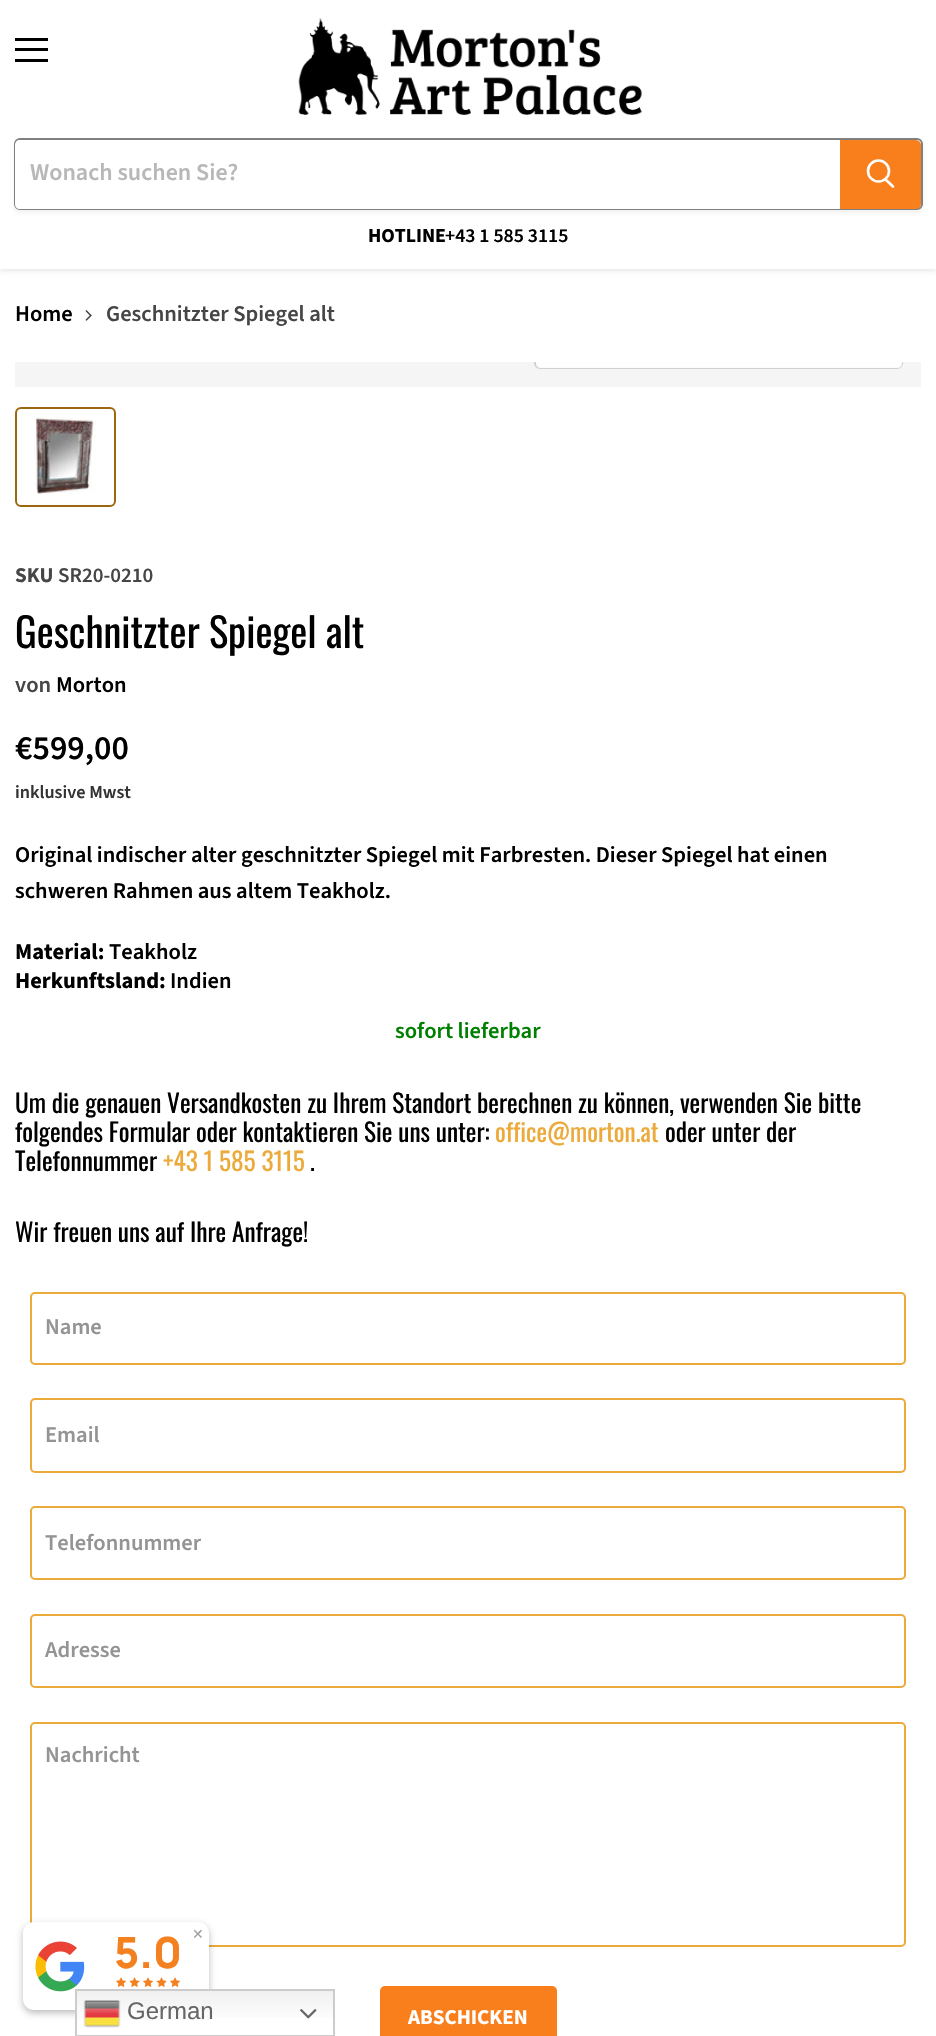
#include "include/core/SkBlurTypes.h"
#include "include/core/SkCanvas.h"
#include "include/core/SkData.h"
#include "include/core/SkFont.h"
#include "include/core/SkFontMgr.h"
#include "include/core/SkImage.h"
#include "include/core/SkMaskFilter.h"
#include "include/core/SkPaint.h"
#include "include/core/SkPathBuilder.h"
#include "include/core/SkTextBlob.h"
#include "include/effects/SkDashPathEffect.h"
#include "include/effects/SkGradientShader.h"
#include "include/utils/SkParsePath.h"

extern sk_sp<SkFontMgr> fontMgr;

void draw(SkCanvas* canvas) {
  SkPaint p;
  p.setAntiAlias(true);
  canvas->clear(SK_ColorWHITE);
  p.setColor(SkColorSetARGB(64, 128, 128, 128));
  p.setMaskFilter(SkMaskFilter::MakeBlur(kNormal_SkBlurStyle, 3));
  canvas->drawRect(SkRect::MakeLTRB(0, 2, 936, 270), p);
  p.setMaskFilter(nullptr);
  p.setColor(SK_ColorWHITE);
  canvas->drawRect(SkRect::MakeLTRB(0, 0, 936, 269), p);
  p.setColor(SK_ColorBLACK);
  canvas->drawRect(SkRect::MakeLTRB(15, 38, 48, 41), p);
  canvas->drawRect(SkRect::MakeLTRB(15, 48, 48, 51), p);
  canvas->drawRect(SkRect::MakeLTRB(15, 59, 48, 62), p);
  canvas->drawImageRect(SkImages::DeferredFromEncodedData(SkData::MakeFromFileName("images/1.png")), SkRect::MakeLTRB(298, 18, 642, 115), SkSamplingOptions());
  p.setColor(SkColorSetARGB(28, 128, 128, 128));
  p.setMaskFilter(SkMaskFilter::MakeBlur(kNormal_SkBlurStyle, 2));
  canvas->drawRoundRect(SkRect::MakeLTRB(14, 141, 923, 213), 6, 6, p);
  p.setMaskFilter(nullptr);
  p.setStyle(SkPaint::kStroke_Style);
  p.setStrokeWidth(2);
  p.setColor(SkColorSetRGB(128, 128, 128));
  canvas->drawRoundRect(SkRect::MakeLTRB(15, 139, 922, 209), 5, 5, p);
  p.setStyle(SkPaint::kFill_Style);
  p.setColor(SK_ColorWHITE);
  canvas->drawPath(SkPathBuilder().moveTo(20, 140).lineTo(840, 140).lineTo(840, 209).lineTo(20, 209).cubicTo(17, 209, 15, 207, 15, 204).lineTo(15, 145).cubicTo(15, 142, 17, 140, 20, 140).close().detach(), p);
  p.setColor(SkColorSetRGB(249, 127, 28));
  canvas->drawPath(SkPathBuilder().moveTo(841, 141).lineTo(916, 141).cubicTo(918, 141, 920, 143, 920, 145).lineTo(920, 204).cubicTo(920, 206, 918, 208, 916, 208).lineTo(841, 208).close().detach(), p);
  p.setStyle(SkPaint::kStroke_Style);
  canvas->drawPath(SkPathBuilder().moveTo(841, 141).lineTo(916, 141).cubicTo(918, 141, 920, 143, 920, 145).lineTo(920, 204).cubicTo(920, 206, 918, 208, 916, 208).lineTo(841, 208).close().detach(), p);
  p.setStrokeWidth(2.6f);
  p.setStrokeCap(SkPaint::kRound_Cap);
  p.setColor(SK_ColorWHITE);
  canvas->drawPath(SkPathBuilder().moveTo(893, 186.5f).lineTo(885.5f, 179.5f).detach(), p);
  p.setStrokeCap(SkPaint::kButt_Cap);
  canvas->drawCircle(878.5f, 171, 10.5f, p);
  canvas->drawImageRect(SkImages::DeferredFromEncodedData(SkData::MakeFromFileName("images/2.png")), SkRect::MakeLTRB(85, 310, 92, 321), SkSamplingOptions());
  p.setStyle(SkPaint::kFill_Style);
  p.setColor(SkColorSetRGB(245, 245, 245));
  canvas->drawRect(SkRect::MakeLTRB(15, 362, 921, 387), p);
  canvas->save();
  canvas->clipRect(SkRect::MakeLTRB(15, 362, 921, 387));
  p.setStyle(SkPaint::kStroke_Style);
  p.setStrokeWidth(2);
  p.setColor(SkColorSetRGB(208, 208, 208));
  canvas->drawRoundRect(SkRect::MakeLTRB(535, 327, 902, 368), 5, 5, p);
  canvas->restore();
  p.setStyle(SkPaint::kFill_Style);
  p.setColor(SkColorSetARGB(230, 255, 255, 255));
  canvas->drawPath(SkPathBuilder().moveTo(536, 362).lineTo(902, 362).lineTo(902, 363).cubicTo(902, 366, 900, 368, 897, 368).lineTo(541, 368).cubicTo(538, 368, 536, 366, 536, 363).close().detach(), p);
  p.setStyle(SkPaint::kStroke_Style);
  p.setColor(SkColorSetRGB(155, 104, 16));
  canvas->drawRoundRect(SkRect::MakeLTRB(16, 408, 115, 506), 5, 5, p);
  canvas->drawImageRect(SkImages::DeferredFromEncodedData(SkData::MakeFromFileName("images/3.png")), SkRect::MakeLTRB(34, 416, 96, 494), SkSamplingOptions());
  p.setColor(SkColorSetRGB(235, 170, 58));
  canvas->drawRoundRect(SkRect::MakeLTRB(31, 1293, 905, 1364), 4, 4, p);
  canvas->drawRoundRect(SkRect::MakeLTRB(31, 1399, 905, 1472), 4, 4, p);
  canvas->drawRoundRect(SkRect::MakeLTRB(31, 1507, 905, 1579), 4, 4, p);
  canvas->drawRoundRect(SkRect::MakeLTRB(31, 1615, 905, 1687), 4, 4, p);
  canvas->drawRoundRect(SkRect::MakeLTRB(31, 1723, 905, 1946), 4, 4, p);
  p.setStyle(SkPaint::kFill_Style);
  p.setColor(SkColorSetRGB(249, 127, 28));
  canvas->drawRoundRect(SkRect::MakeLTRB(381, 1987, 556, 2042), 4, 4, p);
  p.setStyle(SkPaint::kStroke_Style);
  canvas->drawRoundRect(SkRect::MakeLTRB(381, 1987, 556, 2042), 4, 4, p);
  p.setStyle(SkPaint::kFill_Style);
  p.setColor(SkColorSetARGB(66, 0, 0, 0));
  p.setMaskFilter(SkMaskFilter::MakeBlur(kNormal_SkBlurStyle, 3.5f));
  canvas->drawRoundRect(SkRect::MakeLTRB(23, 1925, 209, 2013), 11, 11, p);
  p.setMaskFilter(nullptr);
  p.setColor(SK_ColorWHITE);
  canvas->drawRoundRect(SkRect::MakeLTRB(23, 1922, 209, 2010), 11, 11, p);
  canvas->drawImageRect(SkImages::DeferredFromEncodedData(SkData::MakeFromFileName("images/4.png")), SkRect::MakeLTRB(35, 1941, 85, 1992), SkSamplingOptions());
  canvas->drawImageRect(SkImages::DeferredFromEncodedData(SkData::MakeFromFileName("images/5.png")), SkRect::MakeLTRB(116, 1977, 126, 1987), SkSamplingOptions());
  canvas->drawImageRect(SkImages::DeferredFromEncodedData(SkData::MakeFromFileName("images/6.png")), SkRect::MakeLTRB(129, 1977, 140, 1987), SkSamplingOptions());
  canvas->drawImageRect(SkImages::DeferredFromEncodedData(SkData::MakeFromFileName("images/5.png")), SkRect::MakeLTRB(143, 1977, 153, 1987), SkSamplingOptions());
  canvas->drawImageRect(SkImages::DeferredFromEncodedData(SkData::MakeFromFileName("images/6.png")), SkRect::MakeLTRB(156, 1977, 167, 1987), SkSamplingOptions());
  canvas->drawImageRect(SkImages::DeferredFromEncodedData(SkData::MakeFromFileName("images/5.png")), SkRect::MakeLTRB(170, 1977, 180, 1987), SkSamplingOptions());
  {
    const SkColor colors[] = {SkColorSetRGB(239, 239, 239), SK_ColorWHITE};
    const float stops[] = {0, 0.7f};
    const SkPoint ends[] = {{205, 1989}, {205, 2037}};
    p.setShader(SkGradientShader::MakeLinear(ends, colors, stops, 2, SkTileMode::kClamp));
    p.setAlpha(255);
  }
  canvas->drawRect(SkRect::MakeLTRB(77, 1991, 333, 2018), p);
  p.setStyle(SkPaint::kStroke_Style);
  p.setShader(nullptr);
  p.setColor(SkColorSetRGB(204, 204, 204));
  canvas->drawRect(SkRect::MakeLTRB(76, 1990, 334, 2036), p);
  canvas->drawImageRect(SkImages::DeferredFromEncodedData(SkData::MakeFromFileName("images/7.png")), SkRect::MakeLTRB(83, 2000, 121, 2028), SkSamplingOptions());
  canvas->drawImageRect(SkImages::DeferredFromEncodedData(SkData::MakeFromFileName("images/8.png")), SkRect::MakeLTRB(300, 2009, 317, 2019), SkSamplingOptions());
  SkFont font1(fontMgr->matchFamilyStyle("Source Sans Pro", SkFontStyle(600, SkFontStyle::kNormal_Width, SkFontStyle::kUpright_Slant)), 24);
  font1.setSubpixel(true);
  p.setStyle(SkPaint::kFill_Style);
  p.setColor(SkColorSetRGB(184, 184, 184));
  canvas->drawString("Wonach suchen Sie?", 30, 180, font1, p);
  SkFont font2(fontMgr->matchFamilyStyle("Source Sans Pro", SkFontStyle::Bold()), 19.75f);
  font2.setSubpixel(true);
  p.setColor(SK_ColorBLACK);
  canvas->drawString("HOTLINE", 368, 242, font2, p);
  SkFont font3(fontMgr->matchFamilyStyle("Source Sans Pro", SkFontStyle(600, SkFontStyle::kNormal_Width, SkFontStyle::kUpright_Slant)), 19.75f);
  font3.setSubpixel(true);
  canvas->drawString("+43 1 585 3115", 445, 242, font3, p);
  SkFont font4(fontMgr->matchFamilyStyle("Source Sans Pro", SkFontStyle(600, SkFontStyle::kNormal_Width, SkFontStyle::kUpright_Slant)), 22.5f);
  font4.setSubpixel(true);
  canvas->drawString("Home", 15, 321, font4, p);
  p.setColor(SkColorSetRGB(70, 70, 70));
  canvas->drawString("Geschnitzter Spiegel alt", 106, 321, font4, p);
  SkFont font5(fontMgr->matchFamilyStyle("Source Sans Pro", SkFontStyle::Bold()), 21);
  font5.setSubpixel(true);
  canvas->drawString("SKU", 15, 582, font5, p);
  SkFont font6(fontMgr->matchFamilyStyle("Source Sans Pro", SkFontStyle(600, SkFontStyle::kNormal_Width, SkFontStyle::kUpright_Slant)), 21);
  font6.setSubpixel(true);
  canvas->drawString("SR20-0210", 58, 582, font6, p);
  SkFont font7(fontMgr->matchFamilyStyle("Oswald", SkFontStyle::Normal()), 40.5f);
  font7.setSubpixel(true);
  p.setColor(SK_ColorBLACK);
  canvas->drawString("Geschnitzter Spiegel alt", 15, 648, font7, p);
  p.setColor(SkColorSetRGB(70, 70, 70));
  canvas->drawString("von", 15, 692, font4, p);
  p.setColor(SK_ColorBLACK);
  canvas->drawString("Morton", 56, 692, font4, p);
  SkFont font8(fontMgr->matchFamilyStyle("Source Sans Pro", SkFontStyle(600, SkFontStyle::kNormal_Width, SkFontStyle::kUpright_Slant)), 34);
  font8.setSubpixel(true);
  canvas->drawString("€599,00", 15, 759, font8, p);
  SkFont font9(fontMgr->matchFamilyStyle("Source Sans Pro", SkFontStyle(600, SkFontStyle::kNormal_Width, SkFontStyle::kUpright_Slant)), 18.25f);
  font9.setSubpixel(true);
  p.setColor(SkColorSetRGB(51, 51, 51));
  canvas->drawString("inklusive Mwst", 15, 798, font9, p);
  p.setColor(SK_ColorBLACK);
  canvas->drawString("Original indischer alter geschnitzter Spiegel mit Farbresten. Dieser Spiegel hat einen", 15, 862, font4, p);
  canvas->drawString("schweren Rahmen aus altem Teakholz.", 15, 898, font4, p);
  SkFont font10(fontMgr->matchFamilyStyle("Source Sans Pro", SkFontStyle::Bold()), 22.5f);
  font10.setSubpixel(true);
  canvas->drawString("Material:", 15, 959, font10, p);
  canvas->drawString("Teakholz", 109, 959, font4, p);
  canvas->drawString("Herkunftsland:", 15, 988, font10, p);
  canvas->drawString("Indien", 170, 988, font4, p);
  p.setColor(SkColorSetRGB(0, 128, 0));
  canvas->drawString("sofort lieferbar", 395, 1038, font4, p);
  SkFont font11(fontMgr->matchFamilyStyle("Oswald", SkFontStyle::Normal()), 25.3f);
  font11.setSubpixel(true);
  p.setColor(SK_ColorBLACK);
  canvas->drawString("Um die genauen Versandkosten zu Ihrem Standort berechnen zu können, verwenden Sie bitte", 15, 1113, font11, p);
  canvas->drawString("folgendes Formular oder kontaktieren Sie uns unter:", 15, 1142, font11, p);
  p.setColor(SkColorSetRGB(235, 170, 58));
  canvas->drawString("office@morton.at", 495, 1142, font11, p);
  p.setColor(SK_ColorBLACK);
  canvas->drawString("oder unter der", 665, 1142, font11, p);
  canvas->drawString("Telefonnummer", 15, 1171, font11, p);
  p.setColor(SkColorSetRGB(235, 170, 58));
  canvas->drawString("+43 1 585 3115", 163, 1171, font11, p);
  p.setColor(SK_ColorBLACK);
  canvas->drawString(".", 310, 1171, font11, p);
  canvas->drawString("Wir freuen uns auf Ihre Anfrage!", 15, 1242, font11, p);
  p.setColor(SkColorSetRGB(148, 148, 148));
  canvas->drawString("Name", 45, 1334, font4, p);
  canvas->drawString("Email", 45, 1442, font4, p);
  canvas->drawString("Telefonnummer", 45, 1550, font4, p);
  canvas->drawString("Adresse", 45, 1657, font4, p);
  canvas->drawString("Nachricht", 45, 1762, font4, p);
  p.setColor(SK_ColorWHITE);
  canvas->drawString("ABSCHICKEN", 408, 2024, font5, p);
  SkFont font12(fontMgr->matchFamilyStyle("DejaVu Sans", SkFontStyle::Normal()), 14);
  font12.setSubpixel(true);
  p.setColor(SkColorSetRGB(160, 160, 160));
  canvas->drawString("✕", 192, 1939, font12, p);
  SkFont font13(fontMgr->matchFamilyStyle("Manrope", SkFontStyle(800, SkFontStyle::kNormal_Width, SkFontStyle::kUpright_Slant)), 43);
  font13.setSubpixel(true);
  p.setColor(SkColorSetRGB(244, 129, 32));
  canvas->drawString("5.0", 114, 1968, font13, p);
  SkFont font14(fontMgr->matchFamilyStyle("Liberation Sans", SkFontStyle::Normal()), 24);
  font14.setSubpixel(true);
  p.setColor(SkColorSetRGB(102, 102, 102));
  canvas->drawString("German", 127, 2019, font14, p);
}
